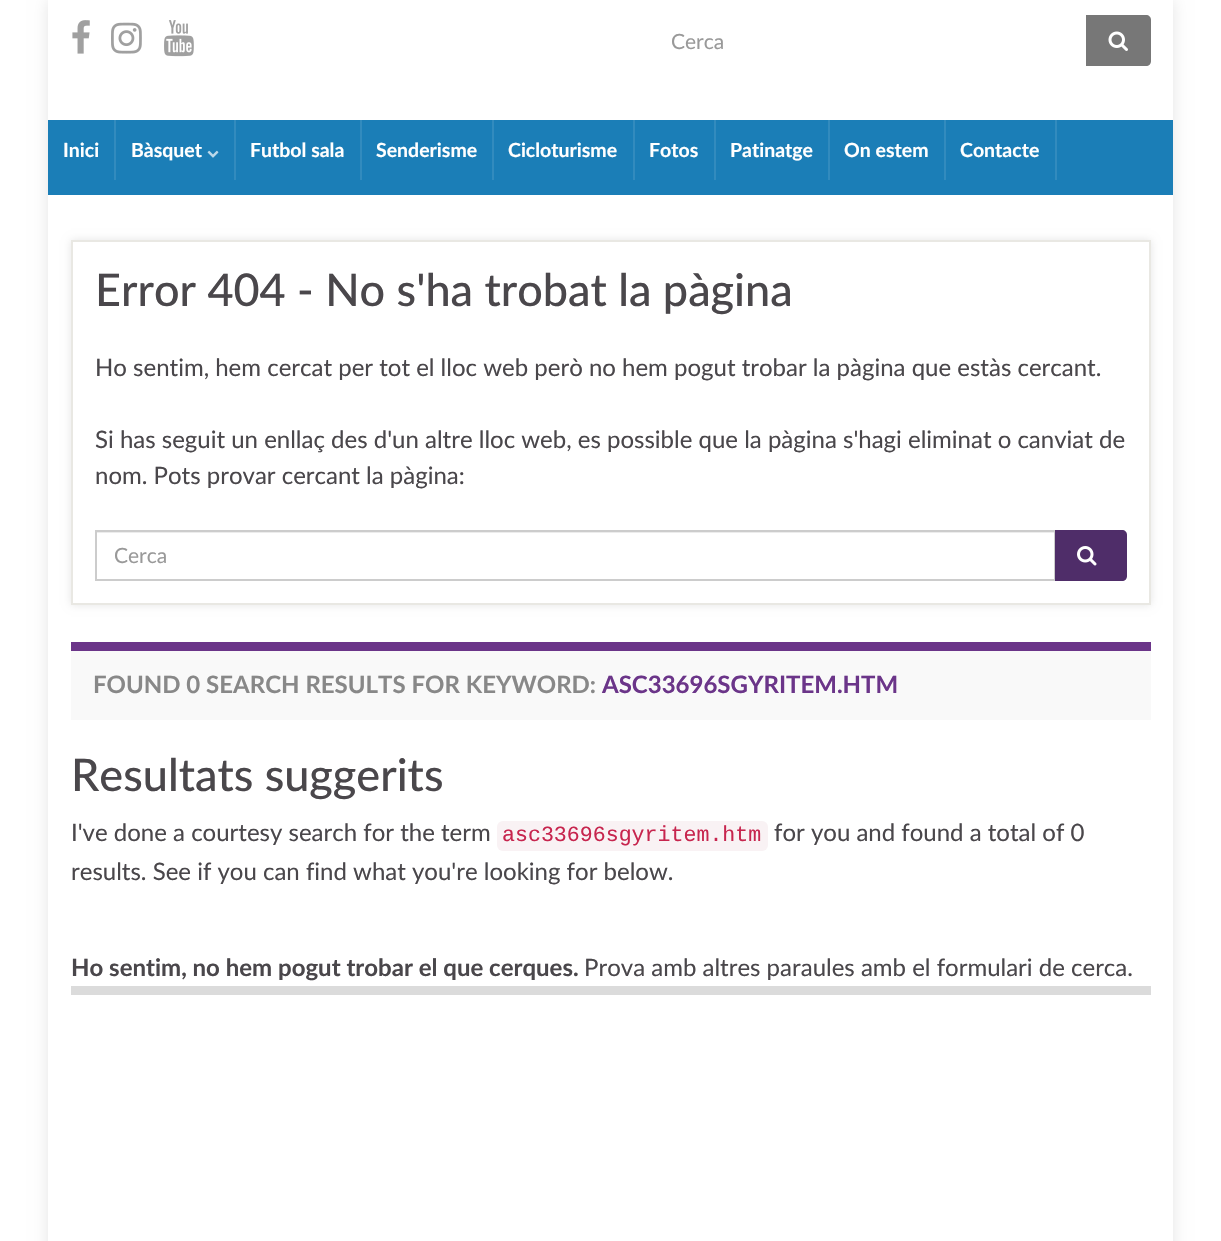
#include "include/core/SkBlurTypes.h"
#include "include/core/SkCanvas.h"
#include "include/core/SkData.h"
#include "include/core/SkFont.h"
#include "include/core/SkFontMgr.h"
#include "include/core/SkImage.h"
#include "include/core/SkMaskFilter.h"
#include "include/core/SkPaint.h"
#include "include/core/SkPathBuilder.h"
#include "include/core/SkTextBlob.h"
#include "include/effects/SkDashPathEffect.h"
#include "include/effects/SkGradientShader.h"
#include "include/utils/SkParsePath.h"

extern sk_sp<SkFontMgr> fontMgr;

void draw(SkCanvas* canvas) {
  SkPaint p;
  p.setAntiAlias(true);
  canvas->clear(SK_ColorWHITE);
  canvas->save();
  canvas->clipPath(SkPathBuilder(SkPathFillType::kEvenOdd).moveTo(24, 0).lineTo(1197, 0).lineTo(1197, 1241).lineTo(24, 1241).close().moveTo(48, 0).lineTo(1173, 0).lineTo(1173, 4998).lineTo(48, 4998).close().detach(), true);
  p.setColor(SkColorSetARGB(26, 0, 0, 0));
  p.setMaskFilter(SkMaskFilter::MakeBlur(kNormal_SkBlurStyle, 7.5f));
  canvas->drawRect(SkRect::MakeLTRB(48, 0, 1173, 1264), p);
  p.setMaskFilter(nullptr);
  canvas->restore();
  canvas->drawImageRect(SkImages::DeferredFromEncodedData(SkData::MakeFromFileName("images/1.png")), SkRect::MakeLTRB(72, 20, 90, 54), SkSamplingOptions());
  canvas->drawImageRect(SkImages::DeferredFromEncodedData(SkData::MakeFromFileName("images/2.png")), SkRect::MakeLTRB(111, 22, 142, 54), SkSamplingOptions());
  canvas->drawImageRect(SkImages::DeferredFromEncodedData(SkData::MakeFromFileName("images/3.png")), SkRect::MakeLTRB(164, 20, 194, 57), SkSamplingOptions());
  p.setColor(SkColorSetRGB(119, 119, 119));
  canvas->drawPath(SkPathBuilder().moveTo(1086, 15).lineTo(1146, 15).cubicTo(1149, 15, 1151, 17, 1151, 20).lineTo(1151, 61).cubicTo(1151, 64, 1149, 66, 1146, 66).lineTo(1086, 66).close().detach(), p);
  canvas->drawImageRect(SkImages::DeferredFromEncodedData(SkData::MakeFromFileName("images/4.png")), SkRect::MakeLTRB(1108, 31, 1128, 51), SkSamplingOptions());
  p.setColor(SkColorSetRGB(27, 126, 183));
  canvas->drawRect(SkRect::MakeLTRB(48, 120, 1173, 195), p);
  p.setColor(SkColorSetRGB(50, 139, 190));
  canvas->drawRect(SkRect::MakeLTRB(114, 120, 116, 180), p);
  canvas->drawRect(SkRect::MakeLTRB(234, 120, 236, 180), p);
  canvas->drawImageRect(SkImages::DeferredFromEncodedData(SkData::MakeFromFileName("images/5.png")), SkRect::MakeLTRB(207, 150, 219, 158), SkSamplingOptions());
  canvas->drawRect(SkRect::MakeLTRB(360, 120, 362, 180), p);
  canvas->drawRect(SkRect::MakeLTRB(492, 120, 494, 180), p);
  canvas->drawRect(SkRect::MakeLTRB(633, 120, 635, 180), p);
  canvas->drawRect(SkRect::MakeLTRB(714, 120, 716, 180), p);
  canvas->drawRect(SkRect::MakeLTRB(828, 120, 830, 180), p);
  canvas->drawRect(SkRect::MakeLTRB(944, 120, 946, 180), p);
  canvas->drawRect(SkRect::MakeLTRB(1055, 120, 1057, 180), p);
  p.setColor(SkColorSetARGB(26, 0, 0, 0));
  p.setMaskFilter(SkMaskFilter::MakeBlur(kNormal_SkBlurStyle, 4));
  canvas->drawRect(SkRect::MakeLTRB(71, 240, 1151, 605), p);
  p.setMaskFilter(nullptr);
  p.setColor(SK_ColorWHITE);
  canvas->drawRect(SkRect::MakeLTRB(72, 241, 1150, 604), p);
  p.setStyle(SkPaint::kStroke_Style);
  p.setStrokeWidth(2);
  p.setColor(SkColorSetRGB(233, 232, 227));
  canvas->drawRect(SkRect::MakeLTRB(72, 241, 1150, 604), p);
  p.setStyle(SkPaint::kFill_Style);
  p.setColor(SkColorSetRGB(236, 236, 236));
  canvas->drawRect(SkRect::MakeLTRB(96, 532, 1055, 533), p);
  p.setStyle(SkPaint::kStroke_Style);
  p.setColor(SkColorSetRGB(204, 204, 204));
  canvas->drawRect(SkRect::MakeLTRB(96, 531, 1055, 580), p);
  p.setStyle(SkPaint::kFill_Style);
  p.setColor(SkColorSetRGB(79, 45, 105));
  canvas->drawPath(SkPathBuilder().moveTo(1055, 530).lineTo(1122, 530).cubicTo(1125, 530, 1127, 532, 1127, 535).lineTo(1127, 576).cubicTo(1127, 579, 1125, 581, 1122, 581).lineTo(1055, 581).close().detach(), p);
  canvas->drawImageRect(SkImages::DeferredFromEncodedData(SkData::MakeFromFileName("images/6.png")), SkRect::MakeLTRB(1077, 546, 1097, 566), SkSamplingOptions());
  p.setColor(SkColorSetRGB(249, 249, 249));
  canvas->drawRect(SkRect::MakeLTRB(71, 651, 1151, 720), p);
  p.setColor(SkColorSetRGB(107, 53, 137));
  canvas->drawRect(SkRect::MakeLTRB(71, 642, 1151, 651), p);
  p.setColor(SkColorSetRGB(249, 242, 244));
  canvas->drawRoundRect(SkRect::MakeLTRB(497, 821, 768, 851), 6, 6, p);
  p.setColor(SkColorSetRGB(219, 219, 219));
  canvas->drawRect(SkRect::MakeLTRB(71, 986, 1151, 995), p);
  SkFont font1(fontMgr->matchFamilyStyle("Lato", SkFontStyle::Normal()), 21);
  font1.setSubpixel(true);
  p.setColor(SkColorSetRGB(153, 153, 153));
  canvas->drawString("Cerca", 671, 49, font1, p);
  SkFont font2(fontMgr->matchFamilyStyle("Lato", SkFontStyle::Bold()), 19.5f);
  font2.setSubpixel(true);
  p.setColor(SK_ColorWHITE);
  canvas->drawString("Inici", 63, 157, font2, p);
  canvas->drawString("Bàsquet", 131, 157, font2, p);
  canvas->drawString("Futbol sala", 250, 157, font2, p);
  canvas->drawString("Senderisme", 376, 157, font2, p);
  canvas->drawString("Cicloturisme", 508, 157, font2, p);
  canvas->drawString("Fotos", 649, 157, font2, p);
  canvas->drawString("Patinatge", 730, 157, font2, p);
  canvas->drawString("On estem", 844, 157, font2, p);
  canvas->drawString("Contacte", 960, 157, font2, p);
  SkFont font3(fontMgr->matchFamilyStyle("Lato", SkFontStyle(500, SkFontStyle::kNormal_Width, SkFontStyle::kUpright_Slant)), 45);
  font3.setSubpixel(true);
  p.setColor(SkColorSetRGB(74, 71, 75));
  canvas->drawString("Error 404 - No s'ha trobat la pàgina", 95, 306, font3, p);
  SkFont font4(fontMgr->matchFamilyStyle("Lato", SkFontStyle::Normal()), 24);
  font4.setSubpixel(true);
  canvas->drawString("Ho sentim, hem cercat per tot el lloc web però no hem pogut trobar la pàgina que estàs cercant.", 95, 376, font4, p);
  canvas->drawString("Si has seguit un enllaç des d'un altre lloc web, es possible que la pàgina s'hagi eliminat o canviat de", 95, 448, font4, p);
  canvas->drawString("nom. Pots provar cercant la pàgina:", 95, 484, font4, p);
  p.setColor(SkColorSetRGB(153, 153, 153));
  canvas->drawString("Cerca", 114, 563, font1, p);
  SkFont font5(fontMgr->matchFamilyStyle("Lato", SkFontStyle::Bold()), 24);
  font5.setSubpixel(true);
  p.setColor(SkColorSetRGB(136, 136, 136));
  canvas->drawString("FOUND 0 SEARCH RESULTS FOR KEYWORD:", 93, 693, font5, p);
  p.setColor(SkColorSetRGB(107, 53, 137));
  canvas->drawString("ASC33696SGYRITEM.HTM", 602, 693, font5, p);
  p.setColor(SkColorSetRGB(74, 71, 75));
  canvas->drawString("Resultats suggerits", 71, 791, font3, p);
  canvas->drawString("I've done a courtesy search for the term", 71, 841, font4, p);
  SkFont font6(fontMgr->matchFamilyStyle("Liberation Mono", SkFontStyle::Normal()), 21.6f);
  font6.setSubpixel(true);
  p.setColor(SkColorSetRGB(199, 37, 78));
  canvas->drawString("asc33696sgyritem.htm", 502, 841, font6, p);
  p.setColor(SkColorSetRGB(74, 71, 75));
  canvas->drawString("for you and found a total of 0", 774, 841, font4, p);
  canvas->drawString("results. See if you can find what you're looking for below.", 71, 880, font4, p);
  canvas->drawString("Ho sentim, no hem pogut trobar el que cerques.", 71, 976, font5, p);
  canvas->drawString("Prova amb altres paraules amb el formulari de cerca.", 584, 976, font4, p);
}
